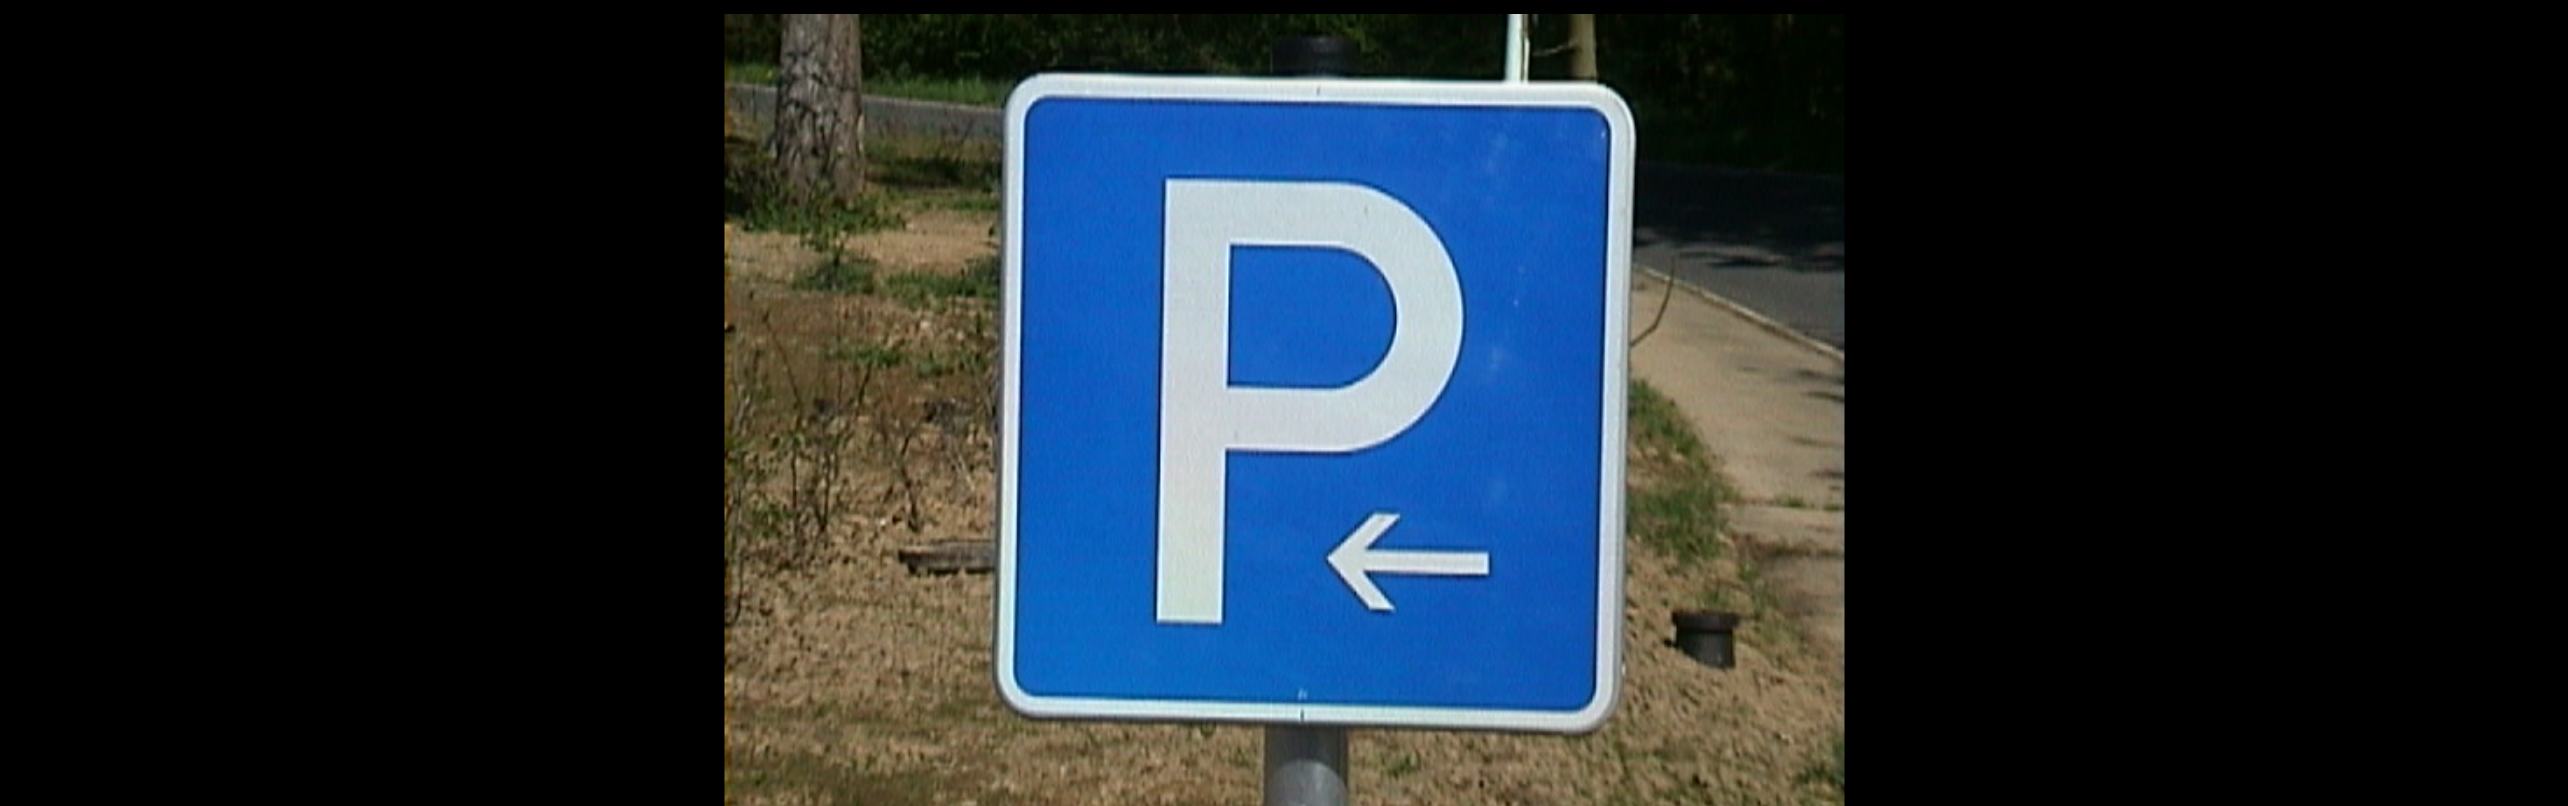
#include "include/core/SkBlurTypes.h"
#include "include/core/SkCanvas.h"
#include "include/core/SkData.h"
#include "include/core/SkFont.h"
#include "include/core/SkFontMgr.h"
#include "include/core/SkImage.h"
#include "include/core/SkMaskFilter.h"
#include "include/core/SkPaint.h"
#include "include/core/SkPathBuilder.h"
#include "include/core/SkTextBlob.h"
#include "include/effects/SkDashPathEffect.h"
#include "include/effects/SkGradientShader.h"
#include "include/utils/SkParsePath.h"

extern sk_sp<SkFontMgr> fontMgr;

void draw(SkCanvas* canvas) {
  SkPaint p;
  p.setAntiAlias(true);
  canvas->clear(SK_ColorBLACK);
  canvas->drawImageRect(SkImages::DeferredFromEncodedData(SkData::MakeFromFileName("images/1.png")), SkRect::MakeLTRB(724, 14, 1845, 806), SkSamplingOptions());
}
